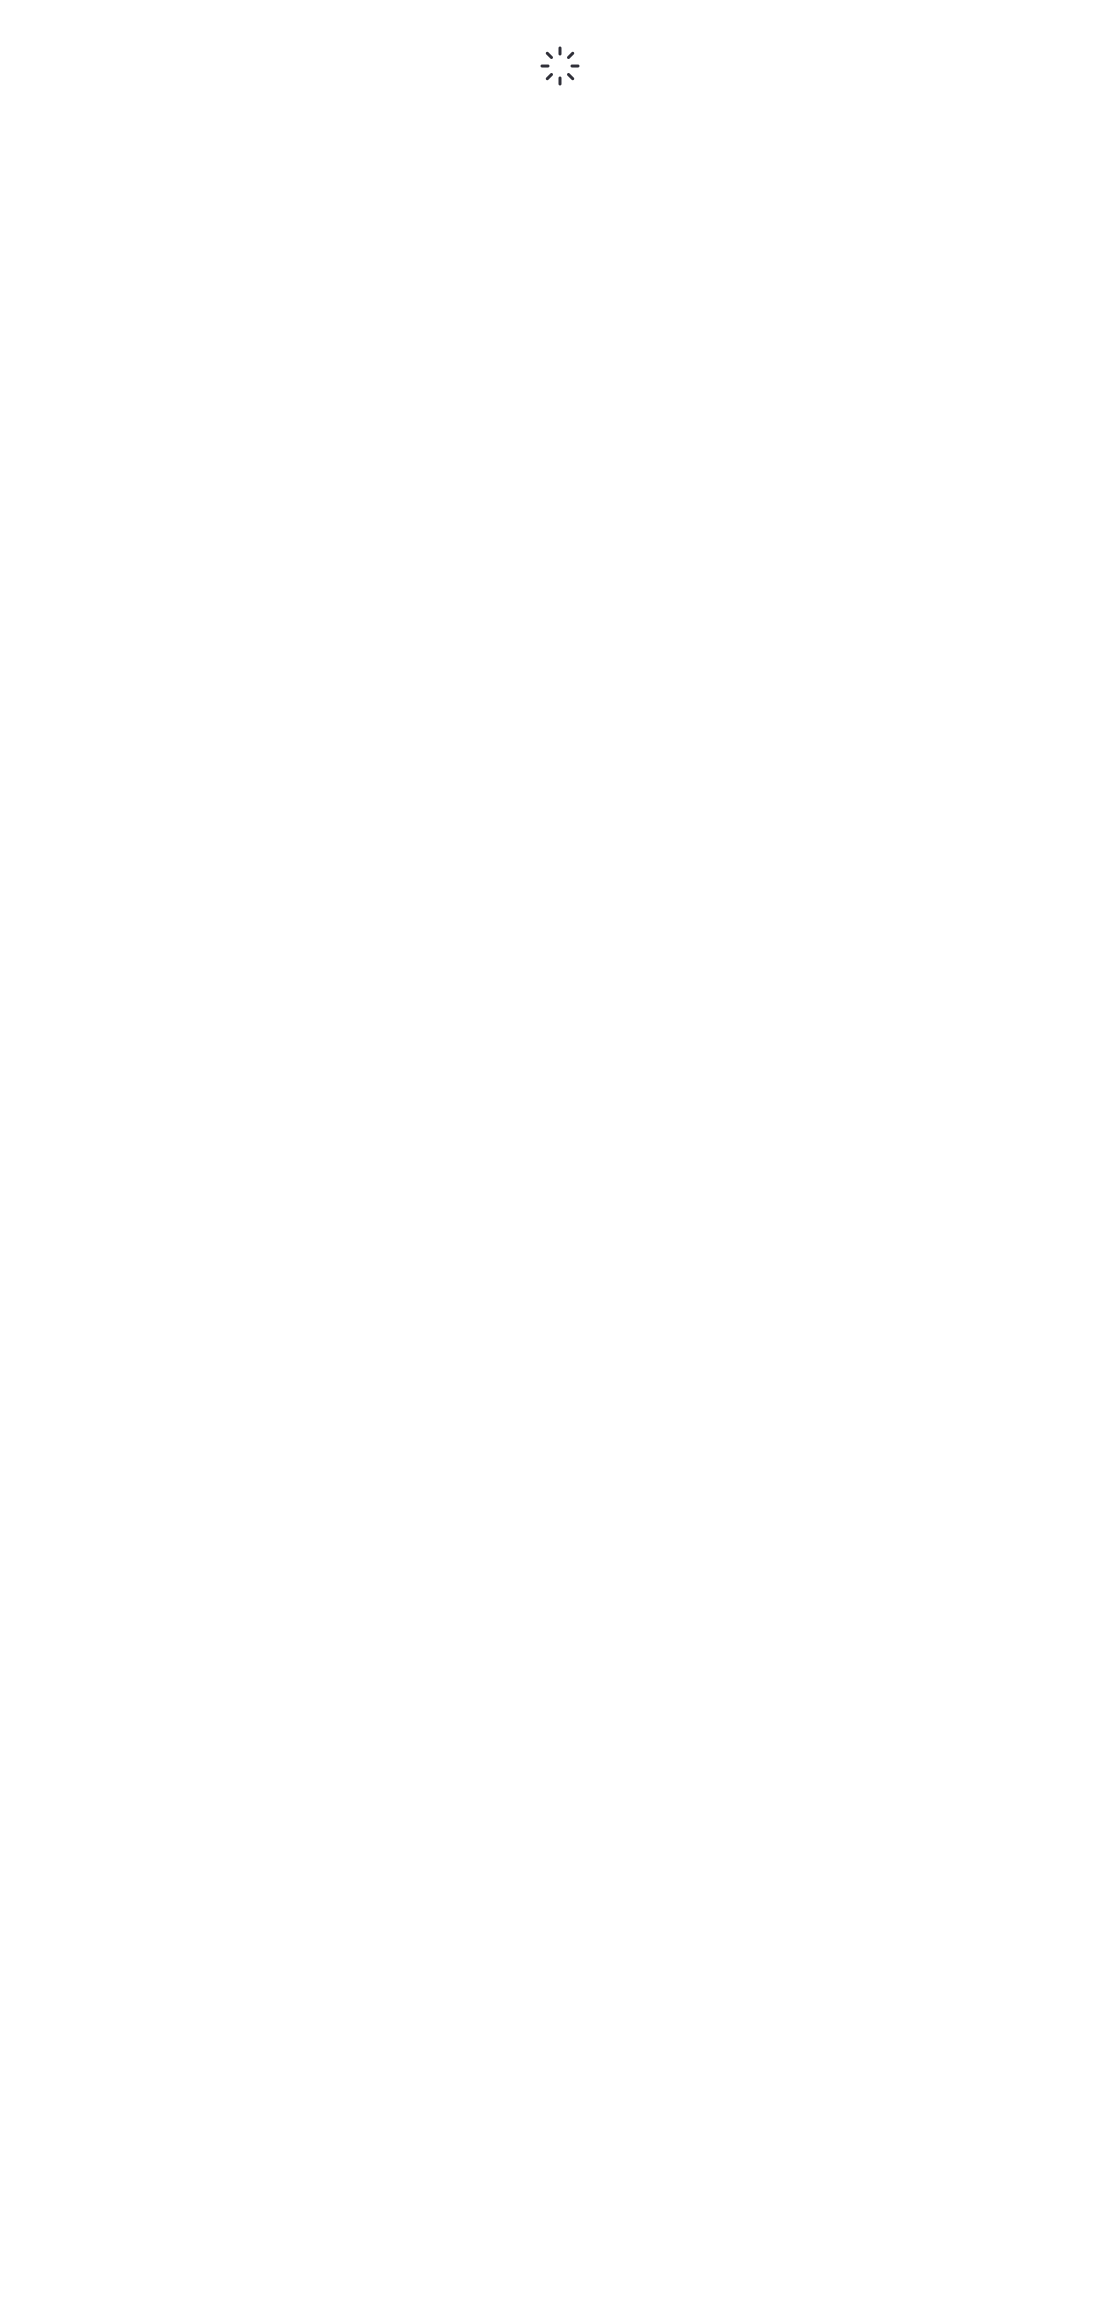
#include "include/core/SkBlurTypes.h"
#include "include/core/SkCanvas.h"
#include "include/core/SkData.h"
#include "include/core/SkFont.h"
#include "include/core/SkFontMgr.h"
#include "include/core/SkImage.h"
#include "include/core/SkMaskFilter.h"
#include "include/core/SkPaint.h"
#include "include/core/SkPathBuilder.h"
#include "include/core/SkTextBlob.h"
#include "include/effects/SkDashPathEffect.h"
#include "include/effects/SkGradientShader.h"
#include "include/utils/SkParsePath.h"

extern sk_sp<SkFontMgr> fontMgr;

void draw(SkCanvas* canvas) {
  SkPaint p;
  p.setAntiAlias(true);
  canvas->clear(SK_ColorWHITE);
  canvas->drawImageRect(SkImages::DeferredFromEncodedData(SkData::MakeFromFileName("images/1.png")), SkRect::MakeLTRB(540, 46, 580, 86), SkSamplingOptions());
}
